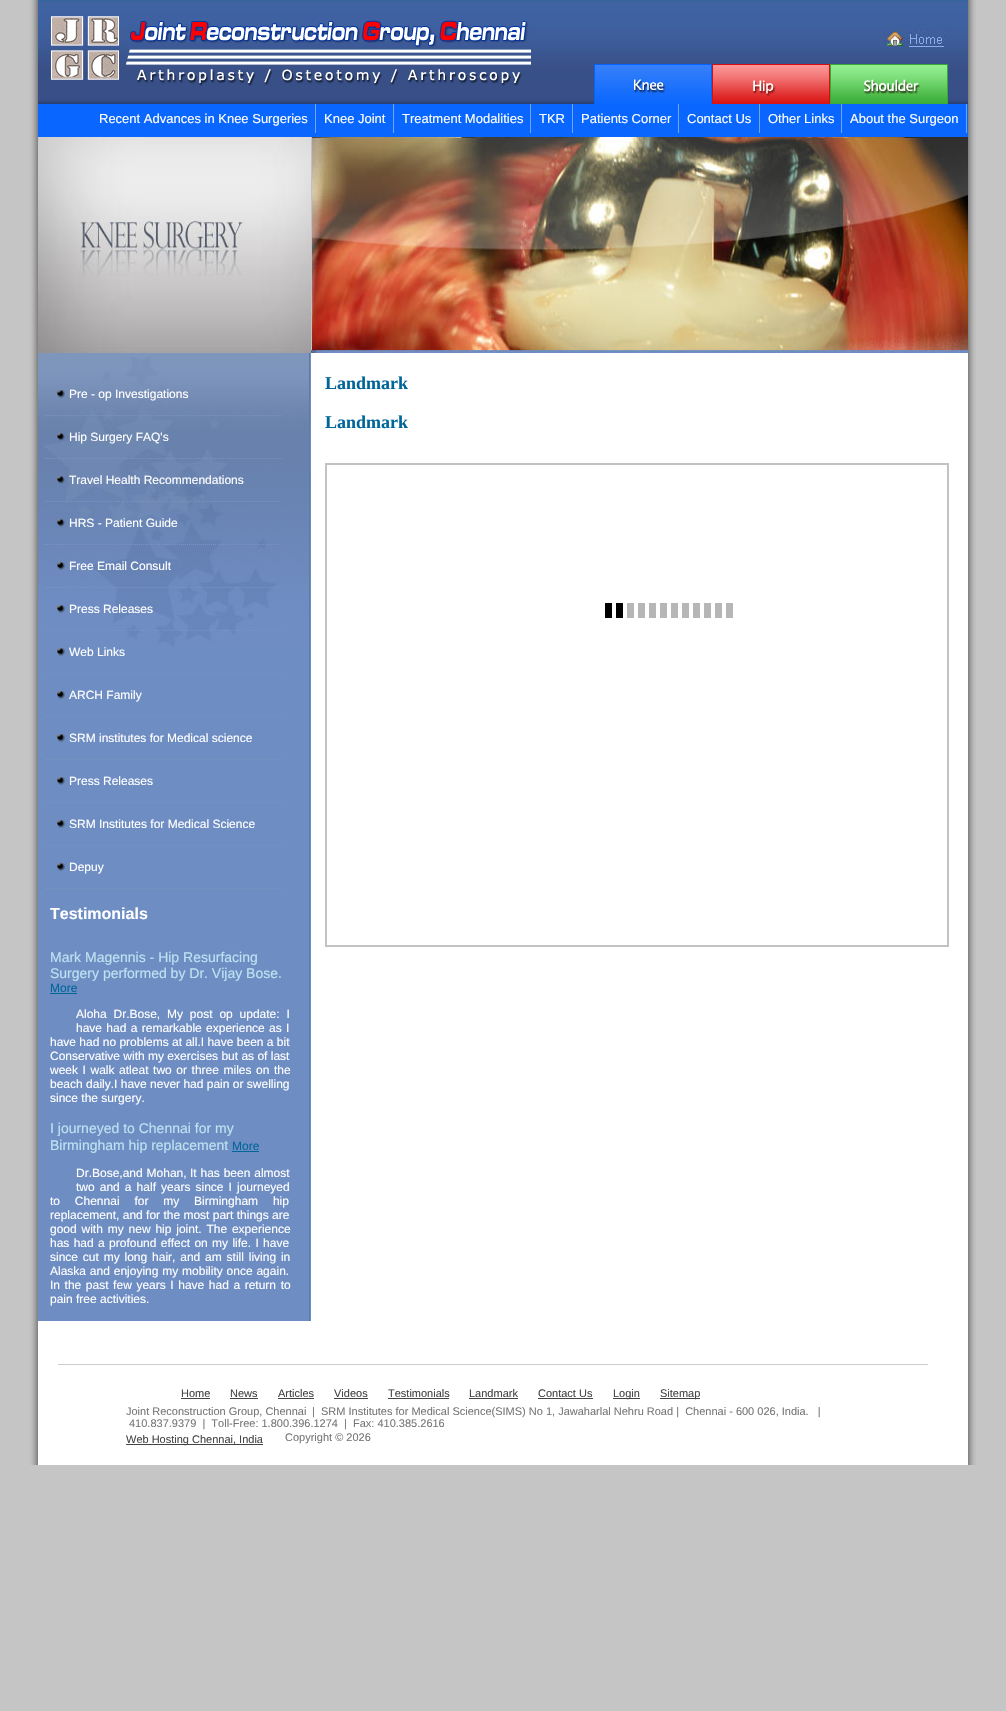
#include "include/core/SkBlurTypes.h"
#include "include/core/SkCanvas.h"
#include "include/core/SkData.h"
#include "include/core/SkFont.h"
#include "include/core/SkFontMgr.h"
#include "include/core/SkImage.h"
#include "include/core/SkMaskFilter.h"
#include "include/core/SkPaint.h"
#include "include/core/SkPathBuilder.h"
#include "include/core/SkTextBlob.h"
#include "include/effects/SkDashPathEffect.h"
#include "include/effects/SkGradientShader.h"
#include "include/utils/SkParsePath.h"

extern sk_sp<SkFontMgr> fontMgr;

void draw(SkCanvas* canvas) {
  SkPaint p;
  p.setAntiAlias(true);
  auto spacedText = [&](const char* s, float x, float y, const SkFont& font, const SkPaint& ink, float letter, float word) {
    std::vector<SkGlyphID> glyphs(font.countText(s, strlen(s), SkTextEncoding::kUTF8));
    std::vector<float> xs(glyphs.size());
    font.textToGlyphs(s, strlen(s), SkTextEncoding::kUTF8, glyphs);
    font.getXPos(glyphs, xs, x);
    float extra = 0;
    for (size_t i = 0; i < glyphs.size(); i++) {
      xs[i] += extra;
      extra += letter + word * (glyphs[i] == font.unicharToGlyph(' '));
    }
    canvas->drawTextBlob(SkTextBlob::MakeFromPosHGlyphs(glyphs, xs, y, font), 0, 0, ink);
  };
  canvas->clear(SkColorSetRGB(197, 197, 197));
  canvas->drawImageRect(SkImages::DeferredFromEncodedData(SkData::MakeFromFileName("images/1.png")), SkRect::MakeLTRB(30, 0, 38, 1465), SkSamplingOptions());
  p.setColor(SK_ColorWHITE);
  canvas->drawRect(SkRect::MakeLTRB(38, 353, 968, 1465), p);
  canvas->drawImageRect(SkImages::DeferredFromEncodedData(SkData::MakeFromFileName("images/2.png")), SkRect::MakeLTRB(38, 0, 968, 104), SkSamplingOptions());
  canvas->drawImageRect(SkImages::DeferredFromEncodedData(SkData::MakeFromFileName("images/3.png")), SkRect::MakeLTRB(51, 16, 531, 86), SkSamplingOptions());
  canvas->drawImageRect(SkImages::DeferredFromEncodedData(SkData::MakeFromFileName("images/4.png")), SkRect::MakeLTRB(883, 30, 947, 47), SkSamplingOptions());
  canvas->drawImageRect(SkImages::DeferredFromEncodedData(SkData::MakeFromFileName("images/5.png")), SkRect::MakeLTRB(594, 64, 712, 104), SkSamplingOptions());
  canvas->drawImageRect(SkImages::DeferredFromEncodedData(SkData::MakeFromFileName("images/6.png")), SkRect::MakeLTRB(712, 64, 830, 104), SkSamplingOptions());
  canvas->drawImageRect(SkImages::DeferredFromEncodedData(SkData::MakeFromFileName("images/7.png")), SkRect::MakeLTRB(830, 64, 948, 104), SkSamplingOptions());
  p.setColor(SkColorSetRGB(9, 102, 254));
  canvas->drawRect(SkRect::MakeLTRB(38, 104, 968, 137), p);
  p.setColor(SkColorSetRGB(114, 163, 245));
  canvas->drawRect(SkRect::MakeLTRB(315, 104, 316, 133), p);
  canvas->drawRect(SkRect::MakeLTRB(393, 104, 394, 133), p);
  canvas->drawRect(SkRect::MakeLTRB(530, 104, 531, 133), p);
  canvas->drawRect(SkRect::MakeLTRB(572, 104, 573, 133), p);
  canvas->drawRect(SkRect::MakeLTRB(678, 104, 679, 133), p);
  canvas->drawRect(SkRect::MakeLTRB(759, 104, 760, 133), p);
  canvas->drawRect(SkRect::MakeLTRB(841, 104, 842, 133), p);
  canvas->drawRect(SkRect::MakeLTRB(966, 104, 967, 133), p);
  canvas->drawImageRect(SkImages::DeferredFromEncodedData(SkData::MakeFromFileName("images/8.png")), SkRect::MakeLTRB(38, 137, 968, 353), SkSamplingOptions());
  canvas->drawImageRect(SkImages::DeferredFromEncodedData(SkData::MakeFromFileName("images/9.png")), SkRect::MakeLTRB(310, 353, 311, 1321), SkSamplingOptions());
  p.setColor(SkColorSetRGB(110, 141, 195));
  canvas->drawRect(SkRect::MakeLTRB(38, 647, 309, 1321), p);
  canvas->drawImageRect(SkImages::DeferredFromEncodedData(SkData::MakeFromFileName("images/10.png")), SkRect::MakeLTRB(38, 353, 309, 647), SkSamplingOptions());
  p.setColor(SkColorSetRGB(93, 124, 170));
  canvas->drawRect(SkRect::MakeLTRB(309, 353, 310, 1321), p);
  p.setStyle(SkPaint::kStroke_Style);
  p.setStrokeWidth(1);
  p.setColor(SkColorSetRGB(122, 147, 191));
  p.setPathEffect(SkDashPathEffect::Make({{1, 1}}, 0));
  canvas->drawPath(SkPathBuilder().moveTo(45, 415.5f).lineTo(282, 415.5f).detach(), p);
  p.setPathEffect(nullptr);
  canvas->drawImageRect(SkImages::DeferredFromEncodedData(SkData::MakeFromFileName("images/11.png")), SkRect::MakeLTRB(57, 390, 65, 398), SkSamplingOptions());
  p.setPathEffect(SkDashPathEffect::Make({{1, 1}}, 0));
  canvas->drawPath(SkPathBuilder().moveTo(45, 458.5f).lineTo(282, 458.5f).detach(), p);
  p.setPathEffect(nullptr);
  canvas->drawImageRect(SkImages::DeferredFromEncodedData(SkData::MakeFromFileName("images/12.png")), SkRect::MakeLTRB(57, 433, 65, 441), SkSamplingOptions());
  p.setPathEffect(SkDashPathEffect::Make({{1, 1}}, 0));
  canvas->drawPath(SkPathBuilder().moveTo(45, 501.5f).lineTo(282, 501.5f).detach(), p);
  p.setPathEffect(nullptr);
  canvas->drawImageRect(SkImages::DeferredFromEncodedData(SkData::MakeFromFileName("images/13.png")), SkRect::MakeLTRB(57, 476, 65, 484), SkSamplingOptions());
  p.setPathEffect(SkDashPathEffect::Make({{1, 1}}, 0));
  canvas->drawPath(SkPathBuilder().moveTo(45, 544.5f).lineTo(282, 544.5f).detach(), p);
  p.setPathEffect(nullptr);
  canvas->drawImageRect(SkImages::DeferredFromEncodedData(SkData::MakeFromFileName("images/14.png")), SkRect::MakeLTRB(57, 519, 65, 527), SkSamplingOptions());
  p.setPathEffect(SkDashPathEffect::Make({{1, 1}}, 0));
  canvas->drawPath(SkPathBuilder().moveTo(45, 587.5f).lineTo(282, 587.5f).detach(), p);
  p.setPathEffect(nullptr);
  canvas->drawImageRect(SkImages::DeferredFromEncodedData(SkData::MakeFromFileName("images/15.png")), SkRect::MakeLTRB(57, 562, 65, 570), SkSamplingOptions());
  p.setPathEffect(SkDashPathEffect::Make({{1, 1}}, 0));
  canvas->drawPath(SkPathBuilder().moveTo(45, 630.5f).lineTo(282, 630.5f).detach(), p);
  p.setPathEffect(nullptr);
  canvas->drawImageRect(SkImages::DeferredFromEncodedData(SkData::MakeFromFileName("images/16.png")), SkRect::MakeLTRB(57, 605, 65, 613), SkSamplingOptions());
  p.setPathEffect(SkDashPathEffect::Make({{1, 1}}, 0));
  canvas->drawPath(SkPathBuilder().moveTo(45, 673.5f).lineTo(282, 673.5f).detach(), p);
  p.setPathEffect(nullptr);
  canvas->drawImageRect(SkImages::DeferredFromEncodedData(SkData::MakeFromFileName("images/17.png")), SkRect::MakeLTRB(57, 648, 65, 656), SkSamplingOptions());
  p.setPathEffect(SkDashPathEffect::Make({{1, 1}}, 0));
  canvas->drawPath(SkPathBuilder().moveTo(45, 716.5f).lineTo(282, 716.5f).detach(), p);
  p.setPathEffect(nullptr);
  canvas->drawImageRect(SkImages::DeferredFromEncodedData(SkData::MakeFromFileName("images/17.png")), SkRect::MakeLTRB(57, 691, 65, 699), SkSamplingOptions());
  p.setPathEffect(SkDashPathEffect::Make({{1, 1}}, 0));
  canvas->drawPath(SkPathBuilder().moveTo(45, 759.5f).lineTo(282, 759.5f).detach(), p);
  p.setPathEffect(nullptr);
  canvas->drawImageRect(SkImages::DeferredFromEncodedData(SkData::MakeFromFileName("images/17.png")), SkRect::MakeLTRB(57, 734, 65, 742), SkSamplingOptions());
  p.setPathEffect(SkDashPathEffect::Make({{1, 1}}, 0));
  canvas->drawPath(SkPathBuilder().moveTo(45, 802.5f).lineTo(282, 802.5f).detach(), p);
  p.setPathEffect(nullptr);
  canvas->drawImageRect(SkImages::DeferredFromEncodedData(SkData::MakeFromFileName("images/17.png")), SkRect::MakeLTRB(57, 777, 65, 785), SkSamplingOptions());
  p.setPathEffect(SkDashPathEffect::Make({{1, 1}}, 0));
  canvas->drawPath(SkPathBuilder().moveTo(45, 845.5f).lineTo(282, 845.5f).detach(), p);
  p.setPathEffect(nullptr);
  canvas->drawImageRect(SkImages::DeferredFromEncodedData(SkData::MakeFromFileName("images/17.png")), SkRect::MakeLTRB(57, 820, 65, 828), SkSamplingOptions());
  p.setPathEffect(SkDashPathEffect::Make({{1, 1}}, 0));
  canvas->drawPath(SkPathBuilder().moveTo(45, 888.5f).lineTo(282, 888.5f).detach(), p);
  p.setPathEffect(nullptr);
  canvas->drawImageRect(SkImages::DeferredFromEncodedData(SkData::MakeFromFileName("images/17.png")), SkRect::MakeLTRB(57, 863, 65, 871), SkSamplingOptions());
  p.setStyle(SkPaint::kFill_Style);
  p.setColor(SkColorSetRGB(0, 102, 153));
  canvas->drawRect(SkRect::MakeLTRB(50, 993, 77, 994), p);
  canvas->drawRect(SkRect::MakeLTRB(232, 1151, 259, 1152), p);
  canvas->drawImageRect(SkImages::DeferredFromEncodedData(SkData::MakeFromFileName("images/18.png")), SkRect::MakeLTRB(605, 603, 733, 618), SkSamplingOptions());
  p.setStyle(SkPaint::kStroke_Style);
  p.setStrokeWidth(2);
  p.setColor(SkColorSetRGB(194, 194, 194));
  canvas->drawRect(SkRect::MakeLTRB(326, 464, 948, 946), p);
  p.setStyle(SkPaint::kFill_Style);
  p.setColor(SkColorSetRGB(204, 204, 204));
  canvas->drawRect(SkRect::MakeLTRB(58, 1364, 928, 1365), p);
  p.setColor(SkColorSetRGB(68, 68, 68));
  canvas->drawRect(SkRect::MakeLTRB(181, 1398, 210, 1399), p);
  canvas->drawRect(SkRect::MakeLTRB(230, 1398, 258, 1399), p);
  canvas->drawRect(SkRect::MakeLTRB(278, 1398, 314, 1399), p);
  canvas->drawRect(SkRect::MakeLTRB(334, 1398, 368, 1399), p);
  canvas->drawRect(SkRect::MakeLTRB(388, 1398, 449, 1399), p);
  canvas->drawRect(SkRect::MakeLTRB(469, 1398, 518, 1399), p);
  canvas->drawRect(SkRect::MakeLTRB(538, 1398, 593, 1399), p);
  canvas->drawRect(SkRect::MakeLTRB(613, 1398, 640, 1399), p);
  canvas->drawRect(SkRect::MakeLTRB(660, 1398, 700, 1399), p);
  canvas->drawRect(SkRect::MakeLTRB(126, 1444, 263, 1445), p);
  canvas->drawImageRect(SkImages::DeferredFromEncodedData(SkData::MakeFromFileName("images/19.png")), SkRect::MakeLTRB(968, 0, 976, 1465), SkSamplingOptions());
  SkFont font1(fontMgr->matchFamilyStyle("Liberation Sans", SkFontStyle::Normal()), 13);
  font1.setSubpixel(true);
  p.setColor(SK_ColorWHITE);
  canvas->drawString("Recent Advances in Knee Surgeries", 99, 123, font1, p);
  canvas->drawString("Knee Joint", 324, 123, font1, p);
  canvas->drawString("Treatment Modalities", 402, 123, font1, p);
  canvas->drawString("TKR", 539, 123, font1, p);
  canvas->drawString("Patients Corner", 581, 123, font1, p);
  canvas->drawString("Contact Us", 687, 123, font1, p);
  canvas->drawString("Other Links", 768, 123, font1, p);
  canvas->drawString("About the Surgeon", 850, 123, font1, p);
  SkFont font2(fontMgr->matchFamilyStyle("Liberation Sans", SkFontStyle::Normal()), 12);
  font2.setSubpixel(true);
  canvas->drawString("Pre - op Investigations", 69, 398, font2, p);
  canvas->drawString("Hip Surgery FAQ's", 69, 441, font2, p);
  canvas->drawString("Travel Health Recommendations", 69, 484, font2, p);
  canvas->drawString("HRS - Patient Guide", 69, 527, font2, p);
  canvas->drawString("Free Email Consult", 69, 570, font2, p);
  canvas->drawString("Press Releases", 69, 613, font2, p);
  canvas->drawString("Web Links", 69, 656, font2, p);
  canvas->drawString("ARCH Family", 69, 699, font2, p);
  canvas->drawString("SRM institutes for Medical science", 69, 742, font2, p);
  canvas->drawString("Press Releases", 69, 785, font2, p);
  canvas->drawString("SRM Institutes for Medical Science", 69, 828, font2, p);
  canvas->drawString("Depuy", 69, 871, font2, p);
  SkFont font3(fontMgr->matchFamilyStyle("Liberation Sans", SkFontStyle::Bold()), 16);
  font3.setSubpixel(true);
  canvas->drawString("Testimonials", 50, 919, font3, p);
  SkFont font4(fontMgr->matchFamilyStyle("Liberation Sans", SkFontStyle::Normal()), 14);
  font4.setSubpixel(true);
  p.setColor(SkColorSetRGB(190, 226, 242));
  canvas->drawString("Mark Magennis - Hip Resurfacing", 50, 962, font4, p);
  canvas->drawString("Surgery performed by Dr. Vijay Bose.", 50, 978, font4, p);
  p.setColor(SkColorSetRGB(0, 102, 153));
  canvas->drawString("More", 50, 992, font2, p);
  p.setColor(SK_ColorWHITE);
  spacedText("Aloha Dr.Bose, My post op update: I", 76, 1018, font2, p, 0, 3.5f);
  spacedText("have had a remarkable experience as I", 76, 1032, font2, p, 0, 1);
  canvas->drawString("have had no problems at all.I have been a bit", 50, 1046, font2, p);
  canvas->drawString("Conservative with my exercises but as of last", 50, 1060, font2, p);
  spacedText("week I walk atleat two or three miles on the", 50, 1074, font2, p, 0, 1.25f);
  canvas->drawString("beach daily.I have never had pain or swelling", 50, 1088, font2, p);
  canvas->drawString("since the surgery.", 50, 1102, font2, p);
  p.setColor(SkColorSetRGB(190, 226, 242));
  canvas->drawString("I journeyed to Chennai for my", 50, 1133, font4, p);
  canvas->drawString("Birmingham hip replacement", 50, 1150, font4, p);
  p.setColor(SkColorSetRGB(0, 102, 153));
  canvas->drawString("More", 232, 1150, font2, p);
  p.setColor(SK_ColorWHITE);
  spacedText("Dr.Bose,and Mohan,", 76, 1177, font2, p, 0, 0.5f);
  spacedText("It has been almost", 190, 1177, font2, p, 0, 0.5f);
  spacedText("two and a half years since I journeyed", 76, 1191, font2, p, 0, 1.75f);
  spacedText("to Chennai for my Birmingham hip", 50, 1205, font2, p, 0, 11.5f);
  canvas->drawString("replacement, and for the most part things are", 50, 1219, font2, p);
  spacedText("good with my new hip joint. The experience", 50, 1233, font2, p, 0, 1.5f);
  spacedText("has had a profound effect on my life. I have", 50, 1247, font2, p, 0, 1);
  spacedText("since cut my long hair, and am still living in", 50, 1261, font2, p, 0, 1.5f);
  spacedText("Alaska and enjoying my mobility once again.", 50, 1275, font2, p, 0, 0.5f);
  spacedText("In the past few years I have had a return to", 50, 1289, font2, p, 0, 1.25f);
  canvas->drawString("pain free activities.", 50, 1303, font2, p);
  SkFont font5(fontMgr->matchFamilyStyle("Liberation Serif", SkFontStyle::Bold()), 18);
  font5.setSubpixel(true);
  p.setColor(SkColorSetRGB(0, 102, 153));
  canvas->drawString("Landmark", 325, 389, font5, p);
  canvas->drawString("Landmark", 325, 428, font5, p);
  SkFont font6(fontMgr->matchFamilyStyle("Liberation Sans", SkFontStyle::Normal()), 11);
  font6.setSubpixel(true);
  p.setColor(SkColorSetRGB(68, 68, 68));
  canvas->drawString("Home", 181, 1397, font6, p);
  canvas->drawString("News", 230, 1397, font6, p);
  canvas->drawString("Articles", 278, 1397, font6, p);
  canvas->drawString("Videos", 334, 1397, font6, p);
  canvas->drawString("Testimonials", 388, 1397, font6, p);
  canvas->drawString("Landmark", 469, 1397, font6, p);
  canvas->drawString("Contact Us", 538, 1397, font6, p);
  canvas->drawString("Login", 613, 1397, font6, p);
  canvas->drawString("Sitemap", 660, 1397, font6, p);
  p.setColor(SkColorSetRGB(119, 119, 119));
  canvas->drawString("Joint Reconstruction Group, Chennai", 126, 1415, font6, p);
  canvas->drawString("|  SRM Institutes for Medical Science(SIMS) No 1, Jawaharlal Nehru Road |  Chennai - 600 026, India.   |", 312, 1415, font6, p);
  canvas->drawString("410.837.9379  |  Toll-Free: 1.800.396.1274  |", 129, 1427, font6, p);
  canvas->drawString("Fax: 410.385.2616", 353, 1427, font6, p);
  p.setColor(SkColorSetRGB(68, 68, 68));
  canvas->drawString("Web Hosting Chennai, India", 126, 1443, font6, p);
  p.setColor(SkColorSetRGB(119, 119, 119));
  canvas->drawString("Copyright © 2026", 285, 1441, font6, p);
}
